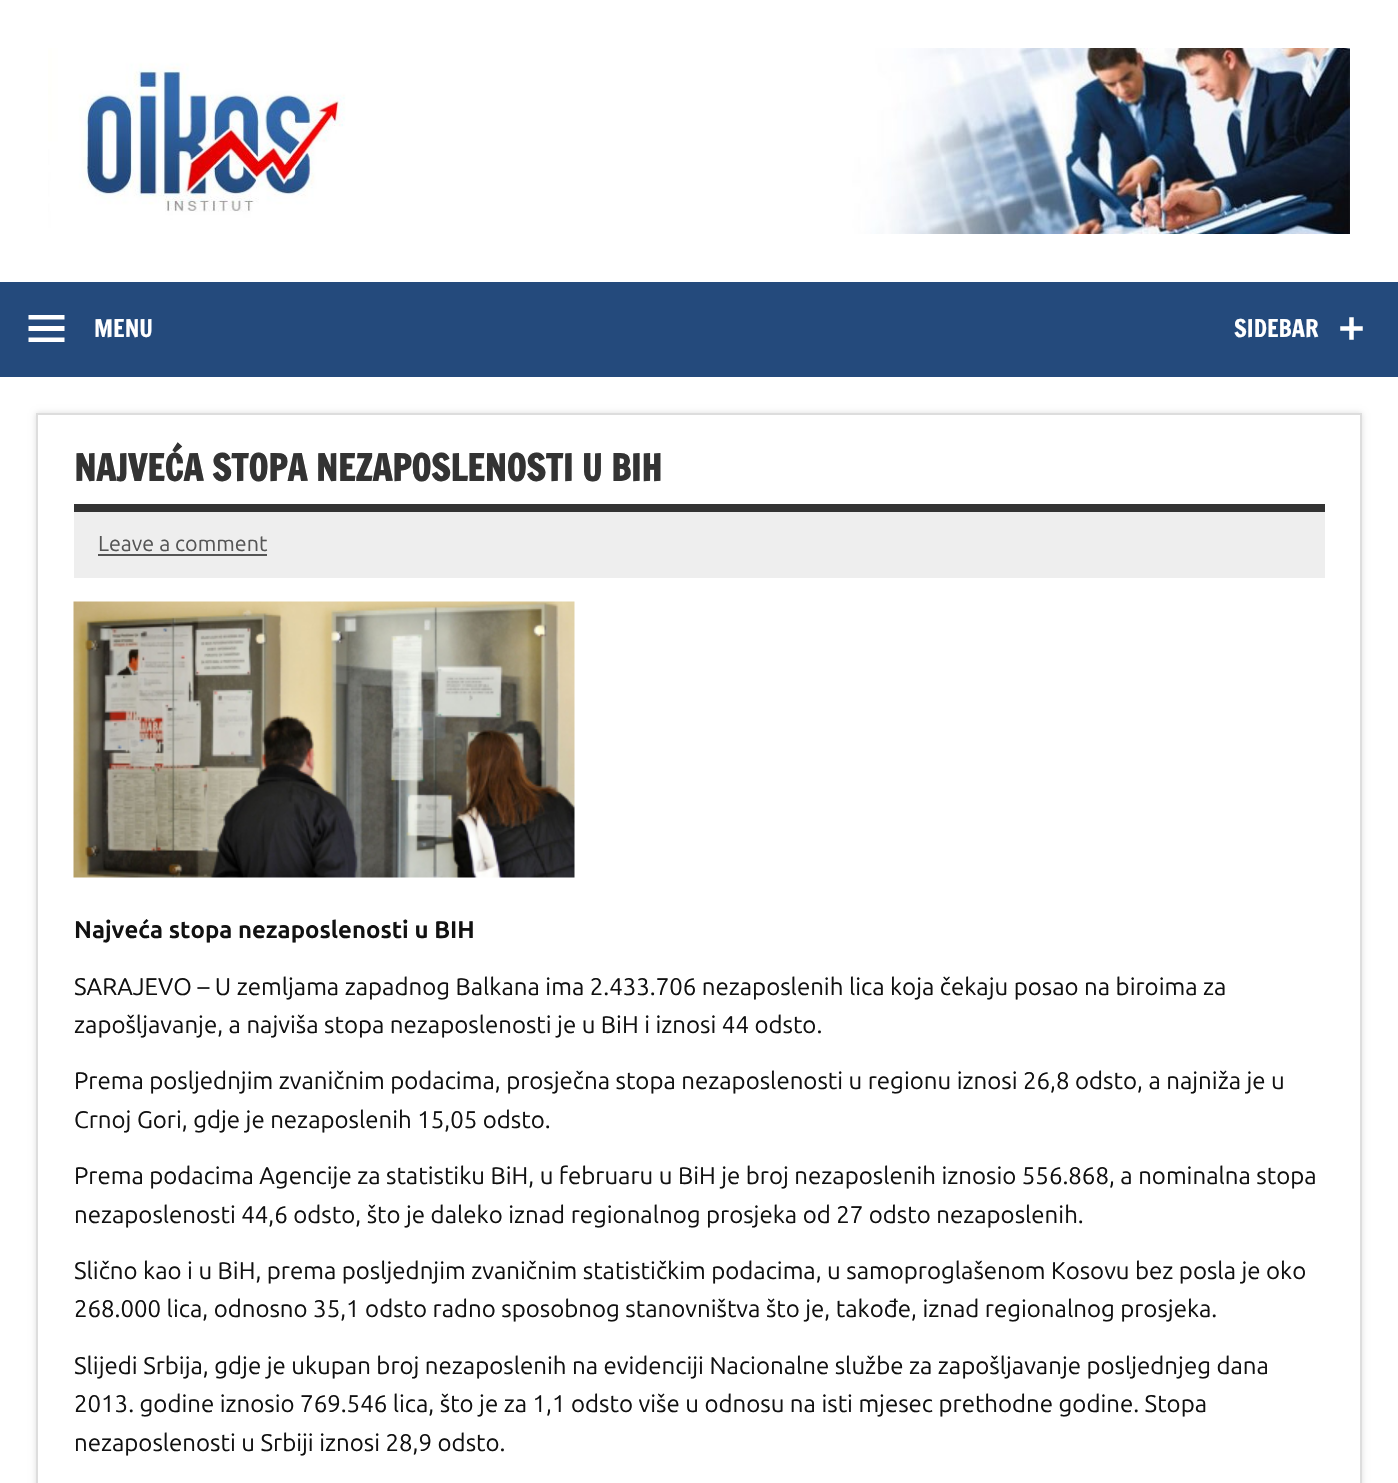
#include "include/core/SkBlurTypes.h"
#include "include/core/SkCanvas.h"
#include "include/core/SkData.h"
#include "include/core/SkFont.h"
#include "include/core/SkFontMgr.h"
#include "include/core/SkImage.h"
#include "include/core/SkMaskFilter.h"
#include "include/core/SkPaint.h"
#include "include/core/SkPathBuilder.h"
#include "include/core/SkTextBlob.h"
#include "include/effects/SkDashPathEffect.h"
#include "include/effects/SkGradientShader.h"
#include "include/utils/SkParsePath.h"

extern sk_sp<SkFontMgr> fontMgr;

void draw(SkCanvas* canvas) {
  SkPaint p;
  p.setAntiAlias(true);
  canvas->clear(SK_ColorWHITE);
  canvas->drawImageRect(SkImages::DeferredFromEncodedData(SkData::MakeFromFileName("images/1.png")), SkRect::MakeLTRB(48, 48, 1350, 234), SkSamplingOptions());
  p.setColor(SkColorSetRGB(36, 74, 124));
  canvas->drawRect(SkRect::MakeLTRB(0, 282, 1398, 377), p);
  p.setColor(SK_ColorWHITE);
  canvas->drawPath(SkPathBuilder().moveTo(28.5f, 342).lineTo(28.5f, 337.5f).lineTo(64.5f, 337.5f).lineTo(64.5f, 342).close().moveTo(28.5f, 315).lineTo(64.5f, 315).lineTo(64.5f, 319.5f).lineTo(28.5f, 319.5f).close().moveTo(28.5f, 331).lineTo(28.5f, 326).lineTo(64.5f, 326).lineTo(64.5f, 331).close().detach(), p);
  canvas->drawImageRect(SkImages::DeferredFromEncodedData(SkData::MakeFromFileName("images/2.png")), SkRect::MakeLTRB(1340, 317, 1363, 340), SkSamplingOptions());
  canvas->save();
  canvas->clipPath(SkPathBuilder(SkPathFillType::kEvenOdd).moveTo(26, 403).lineTo(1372, 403).lineTo(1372, 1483).lineTo(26, 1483).close().moveTo(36, 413).lineTo(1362, 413).lineTo(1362, 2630).lineTo(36, 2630).close().detach(), true);
  p.setColor(SkColorSetRGB(221, 221, 221));
  p.setMaskFilter(SkMaskFilter::MakeBlur(kNormal_SkBlurStyle, 3));
  canvas->drawRect(SkRect::MakeLTRB(36, 413, 1362, 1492), p);
  p.setMaskFilter(nullptr);
  canvas->restore();
  p.setStyle(SkPaint::kStroke_Style);
  p.setStrokeWidth(2);
  canvas->drawRect(SkRect::MakeLTRB(37, 414, 1361, 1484), p);
  p.setStyle(SkPaint::kFill_Style);
  p.setColor(SkColorSetRGB(51, 51, 51));
  canvas->drawRect(SkRect::MakeLTRB(74, 504, 1325, 512), p);
  p.setColor(SkColorSetRGB(238, 238, 238));
  canvas->drawRect(SkRect::MakeLTRB(74, 512, 1325, 578), p);
  p.setColor(SkColorSetRGB(85, 85, 85));
  canvas->drawRect(SkRect::MakeLTRB(98, 554, 267, 556), p);
  canvas->drawImageRect(SkImages::DeferredFromEncodedData(SkData::MakeFromFileName("images/3.png")), SkRect::MakeLTRB(73, 601, 575, 878), SkSamplingOptions());
  SkFont font1(fontMgr->matchFamilyStyle("Francois One", SkFontStyle::Normal()), 24);
  font1.setSubpixel(true);
  p.setColor(SK_ColorWHITE);
  canvas->drawString("MENU", 94, 337, font1, p);
  canvas->drawString("SIDEBAR", 1234, 337, font1, p);
  SkFont font2(fontMgr->matchFamilyStyle("Francois One", SkFontStyle::Bold()), 36);
  font2.setSubpixel(true);
  p.setColor(SkColorSetRGB(51, 51, 51));
  canvas->drawString("NAJVEĆA STOPA NEZAPOSLENOSTI U BIH", 74, 481, font2, p);
  SkFont font3(fontMgr->matchFamilyStyle("Ubuntu", SkFontStyle::Normal()), 21.5f);
  font3.setSubpixel(true);
  p.setColor(SkColorSetRGB(85, 85, 85));
  canvas->drawString("Leave a comment", 98, 551, font3, p);
  SkFont font4(fontMgr->matchFamilyStyle("Ubuntu", SkFontStyle::Bold()), 24);
  font4.setSubpixel(true);
  p.setColor(SkColorSetRGB(17, 17, 17));
  canvas->drawString("Najveća stopa nezaposlenosti u BIH", 74, 938, font4, p);
  SkFont font5(fontMgr->matchFamilyStyle("Ubuntu", SkFontStyle::Normal()), 24);
  font5.setSubpixel(true);
  canvas->drawString("SARAJEVO – U zemljama zapadnog Balkana ima 2.433.706 nezaposlenih lica koja čekaju posao na biroima za", 74, 995, font5, p);
  canvas->drawString("zapošljavanje, a najviša stopa nezaposlenosti je u BiH i iznosi 44 odsto.", 74, 1033, font5, p);
  canvas->drawString("Prema posljednjim zvaničnim podacima, prosječna stopa nezaposlenosti u regionu iznosi 26,8 odsto, a najniža je u", 74, 1089, font5, p);
  canvas->drawString("Crnoj Gori, gdje je nezaposlenih 15,05 odsto.", 74, 1128, font5, p);
  canvas->drawString("Prema podacima Agencije za statistiku BiH, u februaru u BiH je broj nezaposlenih iznosio 556.868, a nominalna stopa", 74, 1184, font5, p);
  canvas->drawString("nezaposlenosti 44,6 odsto, što je daleko iznad regionalnog prosjeka od 27 odsto nezaposlenih.", 74, 1223, font5, p);
  canvas->drawString("Slično kao i u BiH, prema posljednjim zvaničnim statističkim podacima, u samoproglašenom Kosovu bez posla je oko", 74, 1279, font5, p);
  canvas->drawString("268.000 lica, odnosno 35,1 odsto radno sposobnog stanovništva što je, takođe, iznad regionalnog prosjeka.", 74, 1317, font5, p);
  canvas->drawString("Slijedi Srbija, gdje je ukupan broj nezaposlenih na evidenciji Nacionalne službe za zapošljavanje posljednjeg dana", 74, 1374, font5, p);
  canvas->drawString("2013. godine iznosio 769.546 lica, što je za 1,1 odsto više u odnosu na isti mjesec prethodne godine. Stopa", 74, 1412, font5, p);
  canvas->drawString("nezaposlenosti u Srbiji iznosi 28,9 odsto.", 74, 1451, font5, p);
}
